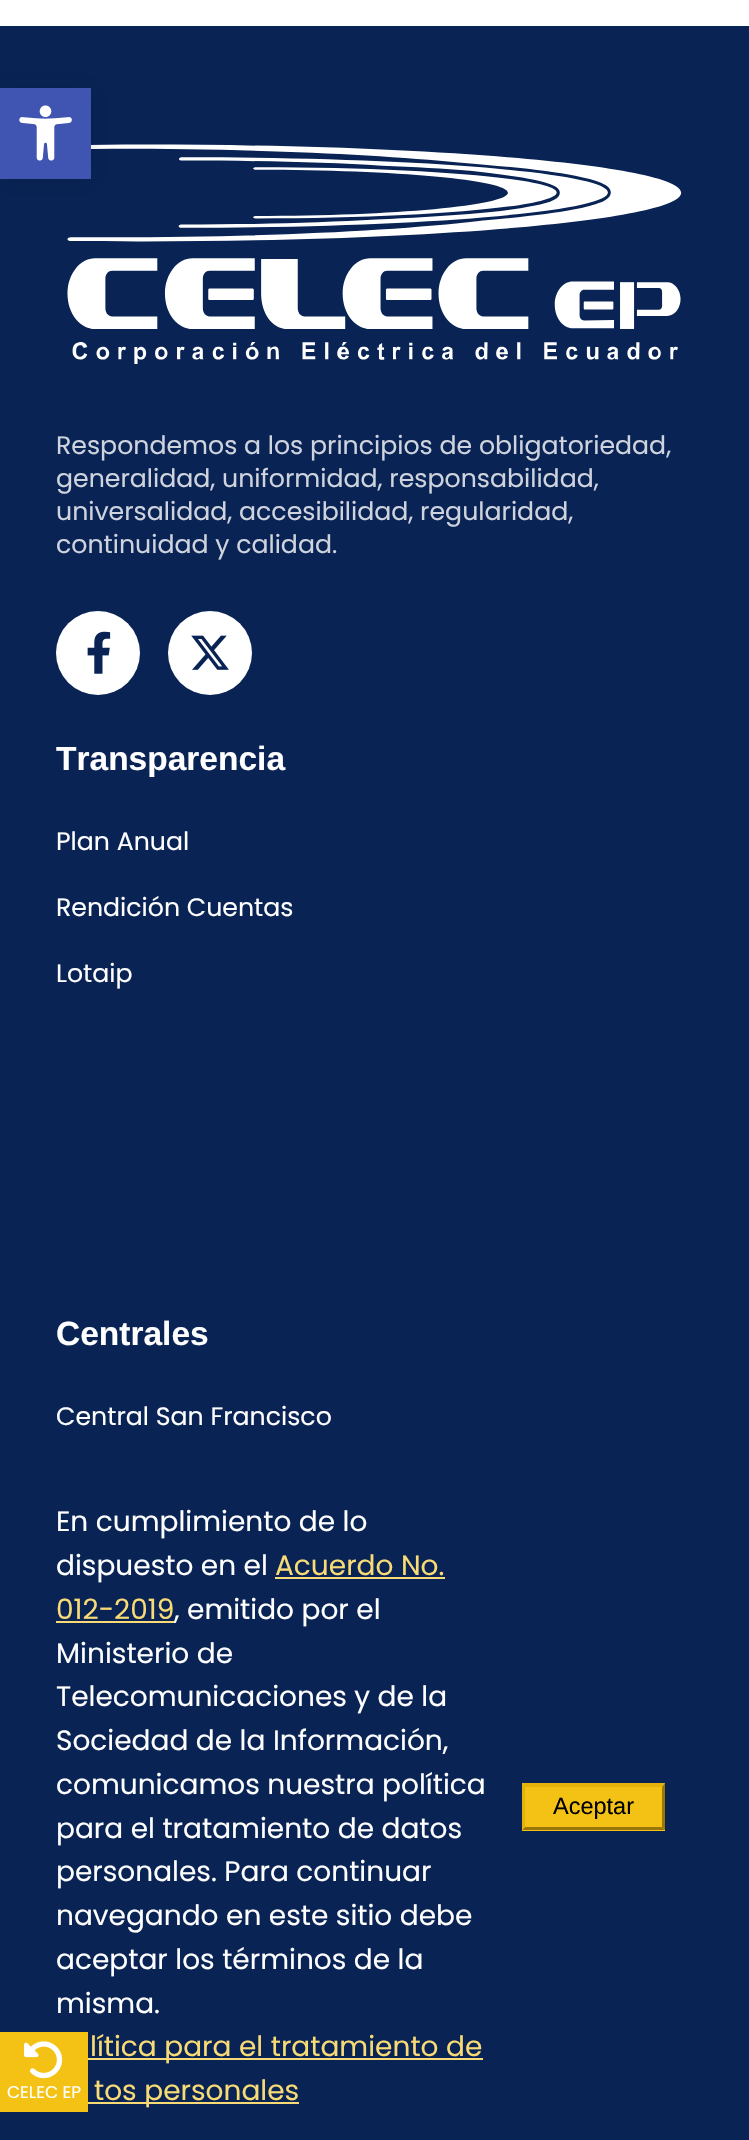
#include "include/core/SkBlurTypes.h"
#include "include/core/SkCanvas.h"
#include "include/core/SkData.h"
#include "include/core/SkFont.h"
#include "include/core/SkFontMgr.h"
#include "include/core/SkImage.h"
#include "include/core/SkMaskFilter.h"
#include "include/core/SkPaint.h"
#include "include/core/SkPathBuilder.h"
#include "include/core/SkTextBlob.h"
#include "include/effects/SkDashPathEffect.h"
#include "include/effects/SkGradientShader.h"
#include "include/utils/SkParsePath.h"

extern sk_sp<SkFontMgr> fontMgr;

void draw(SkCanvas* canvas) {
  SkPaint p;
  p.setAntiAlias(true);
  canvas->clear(SK_ColorWHITE);
  p.setColor(SkColorSetRGB(8, 35, 84));
  canvas->drawRect(SkRect::MakeLTRB(0, 26, 749, 2140), p);
  canvas->drawImageRect(SkImages::DeferredFromEncodedData(SkData::MakeFromFileName("images/2.png")), SkRect::MakeLTRB(67, 144, 682, 364), SkSamplingOptions());
  p.setColor(SkColorSetARGB(26, 0, 0, 0));
  p.setMaskFilter(SkMaskFilter::MakeBlur(kNormal_SkBlurStyle, 9));
  canvas->drawRect(SkRect::MakeLTRB(0, 88, 91, 179), p);
  p.setMaskFilter(nullptr);
  p.setColor(SkColorSetRGB(64, 84, 178));
  canvas->drawRect(SkRect::MakeLTRB(0, 88, 91, 179), p);
  canvas->drawImageRect(SkImages::DeferredFromEncodedData(SkData::MakeFromFileName("images/1.png")), SkRect::MakeLTRB(19, 105, 72, 161), SkSamplingOptions());
  p.setColor(SK_ColorWHITE);
  canvas->drawCircle(98, 653, 42, p);
  canvas->drawImageRect(SkImages::DeferredFromEncodedData(SkData::MakeFromFileName("images/3.png")), SkRect::MakeLTRB(87, 631, 111, 674), SkSamplingOptions());
  canvas->drawCircle(210, 653, 42, p);
  canvas->drawImageRect(SkImages::DeferredFromEncodedData(SkData::MakeFromFileName("images/4.png")), SkRect::MakeLTRB(191, 635, 229, 670), SkSamplingOptions());
  p.setColor(SkColorSetRGB(244, 194, 20));
  canvas->drawRect(SkRect::MakeLTRB(0, 2032, 88, 2112), p);
  canvas->drawImageRect(SkImages::DeferredFromEncodedData(SkData::MakeFromFileName("images/5.png")), SkRect::MakeLTRB(24, 2041, 63, 2079), SkSamplingOptions());
  p.setColor(SkColorSetRGB(249, 219, 117));
  canvas->drawRect(SkRect::MakeLTRB(275, 1577, 445, 1579), p);
  canvas->drawRect(SkRect::MakeLTRB(56, 1621, 175, 1623), p);
  canvas->drawRect(SkRect::MakeLTRB(88, 2058, 483, 2060), p);
  canvas->drawRect(SkRect::MakeLTRB(88, 2102, 299, 2104), p);
  p.setColor(SkColorSetRGB(244, 194, 20));
  canvas->drawRect(SkRect::MakeLTRB(522, 1783, 665, 1831), p);
  p.setColor(SkColorSetRGB(228, 179, 11));
  canvas->drawPath(SkPathBuilder().moveTo(522, 1783).lineTo(665, 1783).lineTo(662, 1787).lineTo(525, 1787).close().detach(), p);
  p.setColor(SkColorSetRGB(152, 119, 7));
  canvas->drawPath(SkPathBuilder().moveTo(665, 1783).lineTo(665, 1830).lineTo(662, 1827).lineTo(662, 1787).close().detach(), p);
  canvas->drawPath(SkPathBuilder().moveTo(665, 1830).lineTo(522, 1830).lineTo(525, 1827).lineTo(662, 1827).close().detach(), p);
  p.setColor(SkColorSetRGB(228, 179, 11));
  canvas->drawPath(SkPathBuilder().moveTo(522, 1830).lineTo(522, 1783).lineTo(525, 1787).lineTo(525, 1827).close().detach(), p);
  SkFont font1(fontMgr->matchFamilyStyle("Poppins", SkFontStyle::Normal()), 25.2f);
  font1.setSubpixel(true);
  p.setColor(SkColorSetRGB(206, 211, 221));
  canvas->drawString("Respondemos a los principios de obligatoriedad,", 56, 454, font1, p);
  canvas->drawString("generalidad, uniformidad, responsabilidad,", 56, 487, font1, p);
  canvas->drawString("universalidad, accesibilidad, regularidad,", 56, 520, font1, p);
  canvas->drawString("continuidad y calidad.", 56, 553, font1, p);
  SkFont font2(fontMgr->matchFamilyStyle("Liberation Sans", SkFontStyle::Bold()), 33.5f);
  font2.setSubpixel(true);
  p.setColor(SK_ColorWHITE);
  canvas->drawString("Transparencia", 56, 770, font2, p);
  canvas->drawString("Plan Anual", 56, 850, font1, p);
  canvas->drawString("Rendición Cuentas", 56, 916, font1, p);
  canvas->drawString("Lotaip", 56, 982, font1, p);
  canvas->drawString("Centrales", 56, 1345, font2, p);
  canvas->drawString("Central San Francisco", 56, 1425, font1, p);
  SkFont font3(fontMgr->matchFamilyStyle("Poppins", SkFontStyle::Normal()), 17);
  font3.setSubpixel(true);
  canvas->drawString("CELEC EP", 7, 2098, font3, p);
  SkFont font4(fontMgr->matchFamilyStyle("Poppins", SkFontStyle::Normal()), 28);
  font4.setSubpixel(true);
  canvas->drawString("En cumplimiento de lo", 56, 1531, font4, p);
  canvas->drawString("dispuesto en el", 56, 1575, font4, p);
  p.setColor(SkColorSetRGB(249, 219, 117));
  canvas->drawString("Acuerdo No.", 275, 1575, font4, p);
  canvas->drawString("012-2019", 56, 1619, font4, p);
  p.setColor(SK_ColorWHITE);
  canvas->drawString(", emitido por el", 174, 1619, font4, p);
  canvas->drawString("Ministerio de", 56, 1663, font4, p);
  canvas->drawString("Telecomunicaciones y de la", 56, 1706, font4, p);
  canvas->drawString("Sociedad de la Información,", 56, 1750, font4, p);
  canvas->drawString("comunicamos nuestra política", 56, 1794, font4, p);
  canvas->drawString("para el tratamiento de datos", 56, 1838, font4, p);
  canvas->drawString("personales. Para continuar", 56, 1881, font4, p);
  canvas->drawString("navegando en este sitio debe", 56, 1925, font4, p);
  canvas->drawString("aceptar los términos de la", 56, 1969, font4, p);
  canvas->drawString("misma.", 56, 2013, font4, p);
  p.setColor(SkColorSetRGB(249, 219, 117));
  canvas->drawString("lítica para el tratamiento de", 90, 2056, font4, p);
  canvas->drawString("tos personales", 94, 2100, font4, p);
  SkFont font5(fontMgr->matchFamilyStyle("Liberation Sans", SkFontStyle::Normal()), 23.5f);
  font5.setSubpixel(true);
  p.setColor(SK_ColorBLACK);
  canvas->drawString("Aceptar", 553, 1814, font5, p);
}
